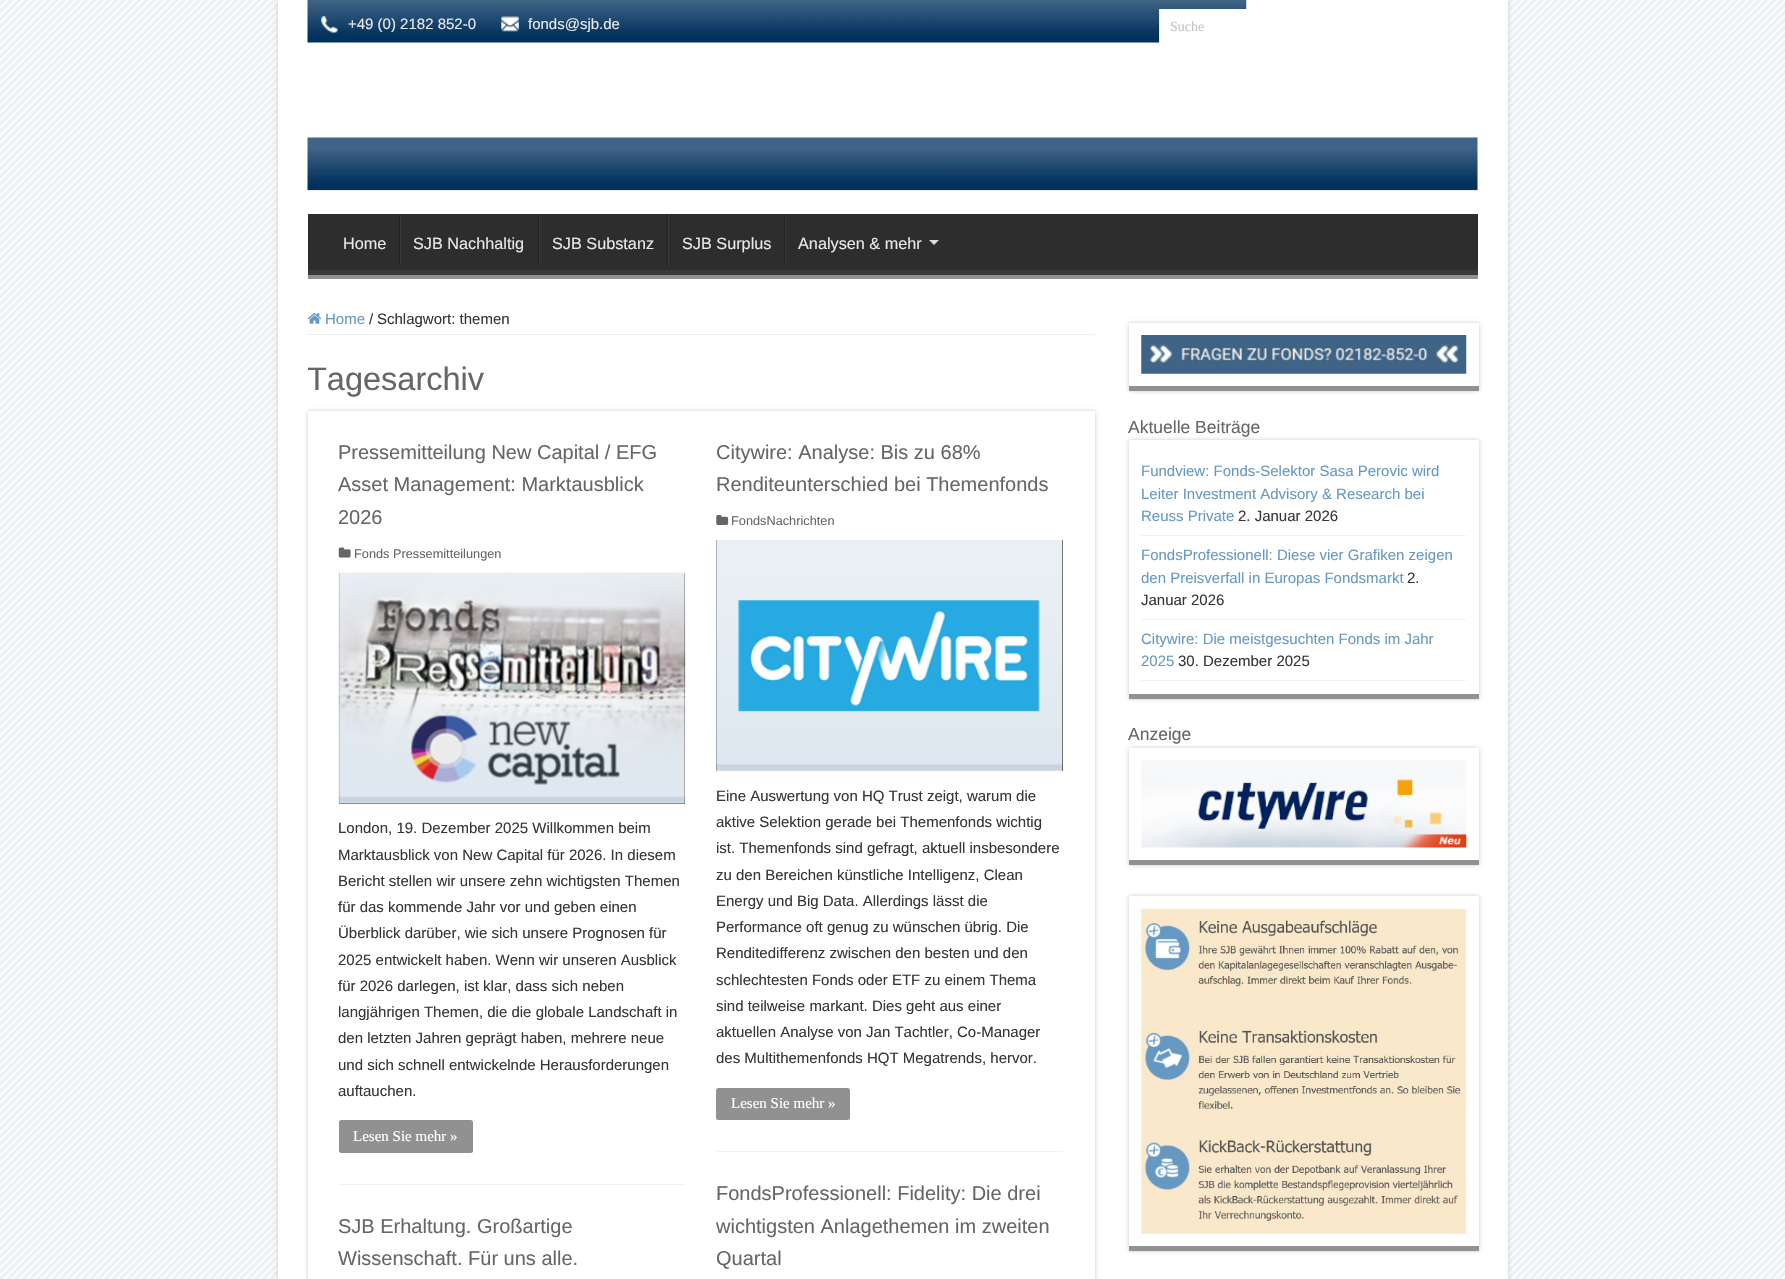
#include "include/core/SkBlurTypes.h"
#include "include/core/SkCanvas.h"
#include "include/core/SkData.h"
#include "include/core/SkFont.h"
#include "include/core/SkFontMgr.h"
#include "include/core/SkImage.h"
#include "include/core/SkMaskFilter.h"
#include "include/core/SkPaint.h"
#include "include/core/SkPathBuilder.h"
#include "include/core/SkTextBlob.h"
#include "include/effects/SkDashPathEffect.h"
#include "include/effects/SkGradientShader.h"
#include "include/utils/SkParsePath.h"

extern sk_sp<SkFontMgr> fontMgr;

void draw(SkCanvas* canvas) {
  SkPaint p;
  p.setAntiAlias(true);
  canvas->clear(SK_ColorWHITE);
  canvas->drawImageRect(SkImages::DeferredFromEncodedData(SkData::MakeFromFileName("images/1.png")), SkRect::MakeLTRB(0, 0, 1785, 1279), SkSamplingOptions());
  p.setColor(SkColorSetRGB(202, 202, 202));
  p.setMaskFilter(SkMaskFilter::MakeBlur(kNormal_SkBlurStyle, 2));
  canvas->drawRect(SkRect::MakeLTRB(278, 0, 1508, 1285), p);
  p.setMaskFilter(nullptr);
  p.setColor(SK_ColorWHITE);
  canvas->drawRect(SkRect::MakeLTRB(278, 0, 1508, 1279), p);
  canvas->drawImageRect(SkImages::DeferredFromEncodedData(SkData::MakeFromFileName("images/2.png")), SkRect::MakeLTRB(307, 137, 1478, 190), SkSamplingOptions());
  p.setColor(SkColorSetRGB(236, 236, 236));
  canvas->drawRect(SkRect::MakeLTRB(308, 190, 1478, 191), p);
  canvas->drawImageRect(SkImages::DeferredFromEncodedData(SkData::MakeFromFileName("images/3.png")), SkRect::MakeLTRB(307, 0, 1247, 43), SkSamplingOptions());
  canvas->drawImageRect(SkImages::DeferredFromEncodedData(SkData::MakeFromFileName("images/4.png")), SkRect::MakeLTRB(321, 16, 338, 33), SkSamplingOptions());
  canvas->drawImageRect(SkImages::DeferredFromEncodedData(SkData::MakeFromFileName("images/5.png")), SkRect::MakeLTRB(501, 16, 519, 32), SkSamplingOptions());
  p.setColor(SK_ColorWHITE);
  canvas->drawRect(SkRect::MakeLTRB(1160, 9, 1247, 43), p);
  p.setColor(SkColorSetRGB(236, 236, 236));
  canvas->drawRect(SkRect::MakeLTRB(1159, 9, 1160, 43), p);
  p.setColor(SkColorSetRGB(45, 45, 45));
  canvas->drawRect(SkRect::MakeLTRB(308, 214, 1478, 270), p);
  canvas->save();
  canvas->clipRect(SkRect::MakeLTRB(308, 214, 1478, 275));
  p.setColor(SkColorSetRGB(57, 57, 57));
  canvas->drawPath(SkPathBuilder(SkPathFillType::kEvenOdd).moveTo(184, 90).lineTo(1601, 90).lineTo(1601, 399).lineTo(184, 399).close().moveTo(306, 206).lineTo(1476, 206).cubicTo(1477, 206, 1478, 207, 1478, 208).lineTo(1478, 269).cubicTo(1478, 269, 1477, 270, 1476, 270).lineTo(306, 270).cubicTo(306, 270, 305, 269, 305, 269).lineTo(305, 208).cubicTo(305, 207, 306, 206, 306, 206).close().detach(), p);
  canvas->restore();
  p.setColor(SkColorSetRGB(145, 145, 145));
  canvas->drawRect(SkRect::MakeLTRB(308, 275, 1478, 279), p);
  p.setColor(SkColorSetRGB(34, 34, 34));
  canvas->drawRect(SkRect::MakeLTRB(399, 214, 400, 266), p);
  p.setColor(SkColorSetRGB(56, 56, 56));
  canvas->drawRect(SkRect::MakeLTRB(400, 214, 401, 266), p);
  p.setColor(SkColorSetRGB(34, 34, 34));
  canvas->drawRect(SkRect::MakeLTRB(538, 214, 539, 266), p);
  p.setColor(SkColorSetRGB(56, 56, 56));
  canvas->drawRect(SkRect::MakeLTRB(539, 214, 540, 266), p);
  p.setColor(SkColorSetRGB(34, 34, 34));
  canvas->drawRect(SkRect::MakeLTRB(666, 214, 667, 266), p);
  p.setColor(SkColorSetRGB(56, 56, 56));
  canvas->drawRect(SkRect::MakeLTRB(668, 214, 669, 266), p);
  p.setColor(SkColorSetRGB(34, 34, 34));
  canvas->drawRect(SkRect::MakeLTRB(784, 214, 785, 266), p);
  p.setColor(SkColorSetRGB(56, 56, 56));
  canvas->drawRect(SkRect::MakeLTRB(785, 214, 786, 266), p);
  p.setColor(SkColorSetRGB(221, 221, 221));
  canvas->drawPath(SkPathBuilder().moveTo(929, 240).lineTo(939, 240).lineTo(934, 245).close().detach(), p);
  p.setColor(SkColorSetRGB(238, 238, 238));
  canvas->drawRect(SkRect::MakeLTRB(308, 334, 1095, 335), p);
  canvas->drawImageRect(SkImages::DeferredFromEncodedData(SkData::MakeFromFileName("images/6.png")), SkRect::MakeLTRB(307, 313, 322, 324), SkSamplingOptions());
  p.setColor(SkColorSetRGB(202, 202, 202));
  p.setMaskFilter(SkMaskFilter::MakeBlur(kNormal_SkBlurStyle, 2));
  canvas->drawRect(SkRect::MakeLTRB(308, 411, 1095, 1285), p);
  p.setMaskFilter(nullptr);
  p.setColor(SK_ColorWHITE);
  canvas->drawRect(SkRect::MakeLTRB(308, 411, 1095, 1279), p);
  p.setColor(SkColorSetRGB(242, 242, 242));
  canvas->drawRect(SkRect::MakeLTRB(339, 1184, 685, 1185), p);
  canvas->drawImageRect(SkImages::DeferredFromEncodedData(SkData::MakeFromFileName("images/7.png")), SkRect::MakeLTRB(338, 547, 351, 558), SkSamplingOptions());
  p.setColor(SK_ColorBLACK);
  canvas->drawRect(SkRect::MakeLTRB(339, 573, 685, 804), p);
  canvas->drawImageRect(SkImages::DeferredFromEncodedData(SkData::MakeFromFileName("images/8.png")), SkRect::MakeLTRB(338, 572, 686, 805), SkSamplingOptions());
  p.setColor(SkColorSetRGB(145, 145, 145));
  canvas->drawRoundRect(SkRect::MakeLTRB(339, 1120, 473, 1153), 2.5f, 2.5f, p);
  p.setColor(SkColorSetRGB(242, 242, 242));
  canvas->drawRect(SkRect::MakeLTRB(716, 1151, 1063, 1152), p);
  canvas->drawImageRect(SkImages::DeferredFromEncodedData(SkData::MakeFromFileName("images/9.png")), SkRect::MakeLTRB(716, 515, 729, 525), SkSamplingOptions());
  p.setColor(SK_ColorBLACK);
  canvas->drawRect(SkRect::MakeLTRB(716, 540, 1063, 771), p);
  canvas->drawImageRect(SkImages::DeferredFromEncodedData(SkData::MakeFromFileName("images/10.png")), SkRect::MakeLTRB(716, 540, 1063, 772), SkSamplingOptions());
  p.setColor(SkColorSetRGB(145, 145, 145));
  canvas->drawRoundRect(SkRect::MakeLTRB(716, 1088, 850, 1120), 2.5f, 2.5f, p);
  p.setColor(SkColorSetRGB(202, 202, 202));
  p.setMaskFilter(SkMaskFilter::MakeBlur(kNormal_SkBlurStyle, 2));
  canvas->drawRect(SkRect::MakeLTRB(1129, 323, 1479, 391), p);
  p.setMaskFilter(nullptr);
  p.setColor(SK_ColorWHITE);
  canvas->drawRect(SkRect::MakeLTRB(1129, 323, 1479, 386), p);
  p.setColor(SkColorSetRGB(145, 145, 145));
  canvas->drawRect(SkRect::MakeLTRB(1129, 386, 1479, 391), p);
  canvas->drawImageRect(SkImages::DeferredFromEncodedData(SkData::MakeFromFileName("images/11.png")), SkRect::MakeLTRB(1141, 335, 1467, 374), SkSamplingOptions());
  p.setColor(SkColorSetRGB(202, 202, 202));
  p.setMaskFilter(SkMaskFilter::MakeBlur(kNormal_SkBlurStyle, 2));
  canvas->drawRect(SkRect::MakeLTRB(1129, 440, 1479, 699), p);
  p.setMaskFilter(nullptr);
  p.setColor(SK_ColorWHITE);
  canvas->drawRect(SkRect::MakeLTRB(1129, 440, 1479, 694), p);
  p.setColor(SkColorSetRGB(145, 145, 145));
  canvas->drawRect(SkRect::MakeLTRB(1129, 694, 1479, 699), p);
  p.setColor(SkColorSetRGB(242, 242, 242));
  canvas->drawRect(SkRect::MakeLTRB(1141, 535, 1466, 536), p);
  canvas->drawRect(SkRect::MakeLTRB(1141, 619, 1466, 620), p);
  canvas->drawRect(SkRect::MakeLTRB(1141, 680, 1466, 681), p);
  p.setColor(SkColorSetRGB(202, 202, 202));
  p.setMaskFilter(SkMaskFilter::MakeBlur(kNormal_SkBlurStyle, 2));
  canvas->drawRect(SkRect::MakeLTRB(1129, 748, 1479, 865), p);
  p.setMaskFilter(nullptr);
  p.setColor(SK_ColorWHITE);
  canvas->drawRect(SkRect::MakeLTRB(1129, 748, 1479, 860), p);
  p.setColor(SkColorSetRGB(145, 145, 145));
  canvas->drawRect(SkRect::MakeLTRB(1129, 860, 1479, 865), p);
  canvas->drawImageRect(SkImages::DeferredFromEncodedData(SkData::MakeFromFileName("images/12.png")), SkRect::MakeLTRB(1141, 760, 1467, 848), SkSamplingOptions());
  p.setColor(SkColorSetRGB(202, 202, 202));
  p.setMaskFilter(SkMaskFilter::MakeBlur(kNormal_SkBlurStyle, 2));
  canvas->drawRect(SkRect::MakeLTRB(1129, 896, 1479, 1251), p);
  p.setMaskFilter(nullptr);
  p.setColor(SK_ColorWHITE);
  canvas->drawRect(SkRect::MakeLTRB(1129, 896, 1479, 1246), p);
  p.setColor(SkColorSetRGB(145, 145, 145));
  canvas->drawRect(SkRect::MakeLTRB(1129, 1246, 1479, 1251), p);
  canvas->drawImageRect(SkImages::DeferredFromEncodedData(SkData::MakeFromFileName("images/13.png")), SkRect::MakeLTRB(1141, 908, 1467, 1234), SkSamplingOptions());
  SkFont font1(fontMgr->matchFamilyStyle("Liberation Sans", SkFontStyle::Normal()), 15);
  font1.setSubpixel(true);
  p.setColor(SkColorSetRGB(232, 232, 232));
  canvas->drawString("+49 (0) 2182 852-0", 348, 29, font1, p);
  canvas->drawString("fonds@sjb.de", 528, 29, font1, p);
  SkFont font2(fontMgr->matchFamilyStyle("Liberation Serif", SkFontStyle::Normal()), 14);
  font2.setSubpixel(true);
  p.setColor(SkColorSetRGB(197, 197, 197));
  canvas->drawString("Suche", 1170, 31, font2, p);
  SkFont font3(fontMgr->matchFamilyStyle("Liberation Sans", SkFontStyle::Normal()), 16.25f);
  font3.setSubpixel(true);
  p.setColor(SkColorSetRGB(232, 232, 232));
  canvas->drawString("Home", 343, 249, font3, p);
  canvas->drawString("SJB Nachhaltig", 413, 249, font3, p);
  canvas->drawString("SJB Substanz", 552, 249, font3, p);
  canvas->drawString("SJB Surplus", 682, 249, font3, p);
  canvas->drawString("Analysen & mehr", 798, 249, font3, p);
  p.setColor(SkColorSetRGB(102, 153, 194));
  canvas->drawString("Home", 325, 324, font1, p);
  p.setColor(SkColorSetRGB(56, 52, 56));
  canvas->drawString("/", 369, 324, font1, p);
  canvas->drawString("Schlagwort: themen", 377, 324, font1, p);
  canvas->save();
  canvas->clipRect(SkRect::MakeLTRB(308, 348, 1095, 411));
  SkFont font4(fontMgr->matchFamilyStyle("Liberation Sans", SkFontStyle::Normal()), 32.5f);
  font4.setSubpixel(true);
  p.setColor(SkColorSetRGB(102, 102, 102));
  canvas->drawString("Tagesarchiv", 307, 390, font4, p);
  canvas->restore();
  SkFont font5(fontMgr->matchFamilyStyle("Liberation Sans", SkFontStyle::Normal()), 20);
  font5.setSubpixel(true);
  canvas->drawString("Pressemitteilung New Capital / EFG", 338, 459, font5, p);
  canvas->drawString("Asset Management: Marktausblick", 338, 491, font5, p);
  canvas->drawString("2026", 338, 524, font5, p);
  SkFont font6(fontMgr->matchFamilyStyle("Liberation Sans", SkFontStyle::Normal()), 12.75f);
  font6.setSubpixel(true);
  canvas->drawString("Fonds Pressemitteilungen", 354, 558, font6, p);
  p.setColor(SkColorSetRGB(56, 52, 56));
  canvas->drawString("London, 19. Dezember 2025 Willkommen beim", 338, 833, font1, p);
  canvas->drawString("Marktausblick von New Capital für 2026. In diesem", 338, 860, font1, p);
  canvas->drawString("Bericht stellen wir unsere zehn wichtigsten Themen", 338, 886, font1, p);
  canvas->drawString("für das kommende Jahr vor und geben einen", 338, 912, font1, p);
  canvas->drawString("Überblick darüber, wie sich unsere Prognosen für", 338, 938, font1, p);
  canvas->drawString("2025 entwickelt haben. Wenn wir unseren Ausblick", 338, 965, font1, p);
  canvas->drawString("für 2026 darlegen, ist klar, dass sich neben", 338, 991, font1, p);
  canvas->drawString("langjährigen Themen, die die globale Landschaft in", 338, 1017, font1, p);
  canvas->drawString("den letzten Jahren geprägt haben, mehrere neue", 338, 1043, font1, p);
  canvas->drawString("und sich schnell entwickelnde Herausforderungen", 338, 1070, font1, p);
  canvas->drawString("auftauchen.", 338, 1096, font1, p);
  SkFont font7(fontMgr->matchFamilyStyle("Liberation Serif", SkFontStyle::Normal()), 15);
  font7.setSubpixel(true);
  p.setColor(SK_ColorWHITE);
  canvas->drawString("Lesen Sie mehr »", 353, 1141, font7, p);
  p.setColor(SkColorSetRGB(102, 102, 102));
  canvas->drawString("Citywire: Analyse: Bis zu 68%", 716, 459, font5, p);
  canvas->drawString("Renditeunterschied bei Themenfonds", 716, 491, font5, p);
  canvas->drawString("FondsNachrichten", 731, 525, font6, p);
  p.setColor(SkColorSetRGB(56, 52, 56));
  canvas->drawString("Eine Auswertung von HQ Trust zeigt, warum die", 716, 801, font1, p);
  canvas->drawString("aktive Selektion gerade bei Themenfonds wichtig", 716, 827, font1, p);
  canvas->drawString("ist. Themenfonds sind gefragt, aktuell insbesondere", 716, 853, font1, p);
  canvas->drawString("zu den Bereichen künstliche Intelligenz, Clean", 716, 880, font1, p);
  canvas->drawString("Energy und Big Data. Allerdings lässt die", 716, 906, font1, p);
  canvas->drawString("Performance oft genug zu wünschen übrig. Die", 716, 932, font1, p);
  canvas->drawString("Renditedifferenz zwischen den besten und den", 716, 958, font1, p);
  canvas->drawString("schlechtesten Fonds oder ETF zu einem Thema", 716, 985, font1, p);
  canvas->drawString("sind teilweise markant. Dies geht aus einer", 716, 1011, font1, p);
  canvas->drawString("aktuellen Analyse von Jan Tachtler, Co-Manager", 716, 1037, font1, p);
  canvas->drawString("des Multithemenfonds HQT Megatrends, hervor.", 716, 1063, font1, p);
  p.setColor(SK_ColorWHITE);
  canvas->drawString("Lesen Sie mehr »", 731, 1108, font7, p);
  p.setColor(SkColorSetRGB(102, 102, 102));
  canvas->drawString("SJB Erhaltung. Großartige", 338, 1233, font5, p);
  canvas->drawString("Wissenschaft. Für uns alle.", 338, 1265, font5, p);
  canvas->drawString("FondsProfessionell: Fidelity: Die drei", 716, 1200, font5, p);
  canvas->drawString("wichtigsten Anlagethemen im zweiten", 716, 1233, font5, p);
  canvas->drawString("Quartal", 716, 1265, font5, p);
  SkFont font8(fontMgr->matchFamilyStyle("Liberation Sans", SkFontStyle::Normal()), 17.5f);
  font8.setSubpixel(true);
  canvas->drawString("Aktuelle Beiträge", 1128, 433, font8, p);
  p.setColor(SkColorSetRGB(102, 153, 194));
  canvas->drawString("Fundview: Fonds-Selektor Sasa Perovic wird", 1141, 476, font1, p);
  canvas->drawString("Leiter Investment Advisory & Research bei", 1141, 499, font1, p);
  canvas->drawString("Reuss Private", 1141, 521, font1, p);
  p.setColor(SkColorSetRGB(56, 52, 56));
  canvas->drawString("2. Januar 2026", 1238, 521, font1, p);
  p.setColor(SkColorSetRGB(102, 153, 194));
  canvas->drawString("FondsProfessionell: Diese vier Grafiken zeigen", 1141, 560, font1, p);
  canvas->drawString("den Preisverfall in Europas Fondsmarkt", 1141, 583, font1, p);
  p.setColor(SkColorSetRGB(56, 52, 56));
  canvas->drawString("2.", 1407, 583, font1, p);
  canvas->drawString("Januar 2026", 1141, 605, font1, p);
  p.setColor(SkColorSetRGB(102, 153, 194));
  canvas->drawString("Citywire: Die meistgesuchten Fonds im Jahr", 1141, 644, font1, p);
  canvas->drawString("2025", 1141, 666, font1, p);
  p.setColor(SkColorSetRGB(56, 52, 56));
  canvas->drawString("30. Dezember 2025", 1178, 666, font1, p);
  p.setColor(SkColorSetRGB(102, 102, 102));
  canvas->drawString("Anzeige", 1128, 740, font8, p);
}
